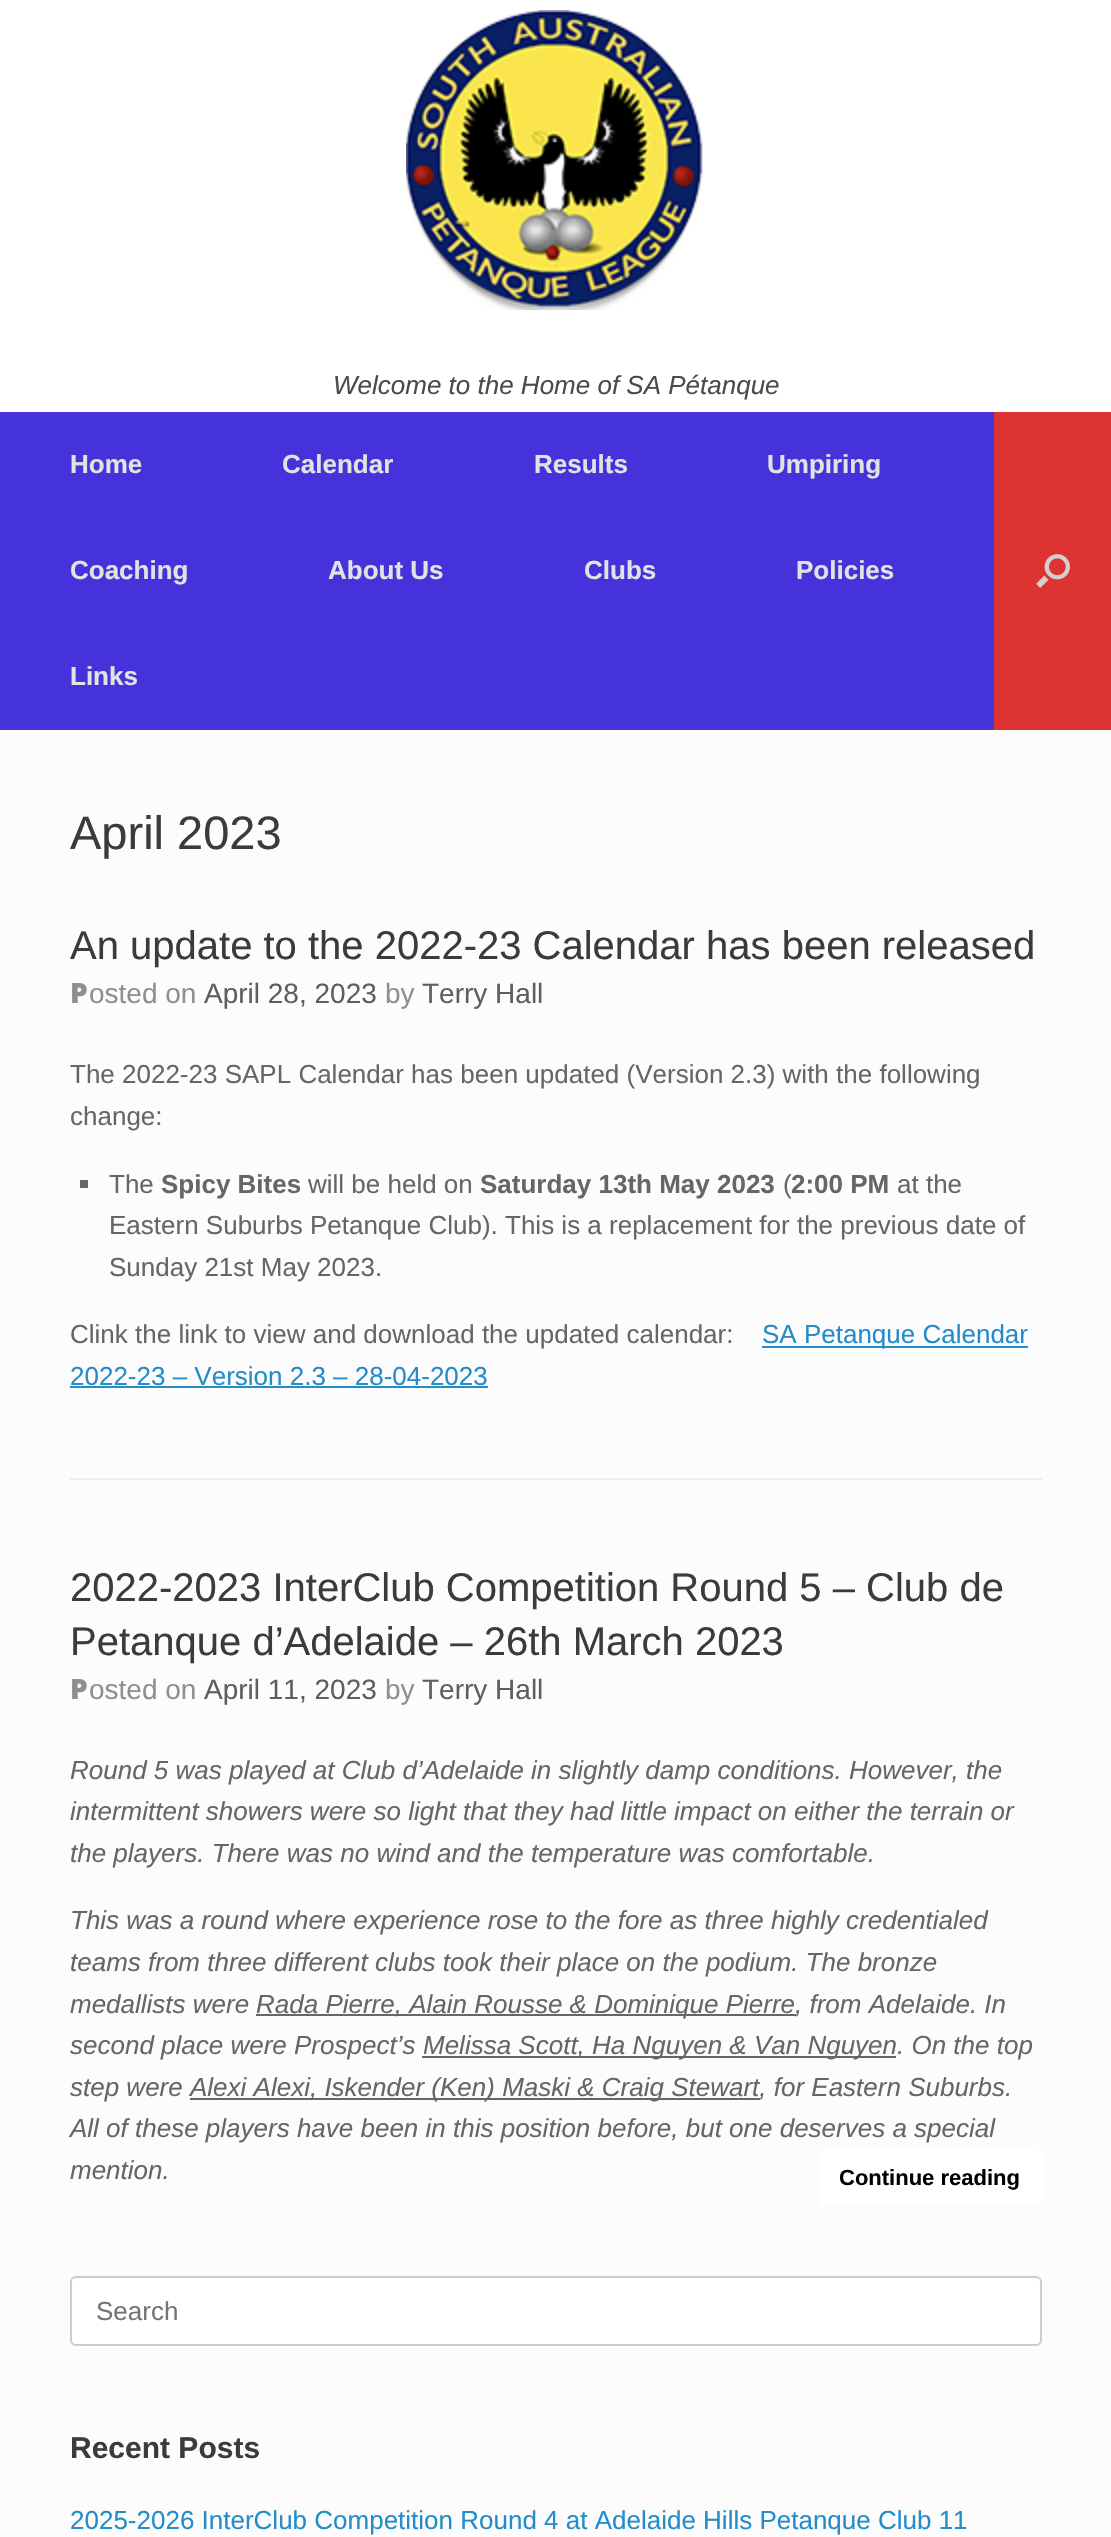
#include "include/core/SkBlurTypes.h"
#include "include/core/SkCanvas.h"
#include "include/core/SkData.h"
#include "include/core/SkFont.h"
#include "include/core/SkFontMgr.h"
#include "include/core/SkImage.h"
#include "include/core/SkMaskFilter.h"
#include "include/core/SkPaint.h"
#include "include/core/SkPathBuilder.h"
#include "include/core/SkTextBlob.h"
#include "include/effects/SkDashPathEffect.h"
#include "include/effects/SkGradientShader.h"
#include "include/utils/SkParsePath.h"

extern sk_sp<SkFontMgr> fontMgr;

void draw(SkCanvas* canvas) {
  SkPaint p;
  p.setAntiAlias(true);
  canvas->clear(SK_ColorWHITE);
  canvas->drawImageRect(SkImages::DeferredFromEncodedData(SkData::MakeFromFileName("images/1.png")), SkRect::MakeLTRB(406, 10, 703, 310), SkSamplingOptions());
  p.setColor(SkColorSetRGB(70, 50, 219));
  canvas->drawRect(SkRect::MakeLTRB(0, 412, 994, 730), p);
  p.setColor(SkColorSetRGB(221, 51, 51));
  canvas->drawRect(SkRect::MakeLTRB(994, 412, 1111, 730), p);
  canvas->drawImageRect(SkImages::DeferredFromEncodedData(SkData::MakeFromFileName("images/2.png")), SkRect::MakeLTRB(1036, 554, 1070, 588), SkSamplingOptions());
  p.setColor(SkColorSetRGB(252, 252, 252));
  canvas->drawRect(SkRect::MakeLTRB(0, 730, 1111, 2537), p);
  p.setColor(SkColorSetRGB(238, 238, 238));
  canvas->drawRect(SkRect::MakeLTRB(70, 1478, 1042, 1480), p);
  p.setColor(SkColorSetRGB(102, 102, 102));
  canvas->drawRect(SkRect::MakeLTRB(80, 1180, 88, 1188), p);
  p.setColor(SkColorSetRGB(36, 140, 200));
  canvas->drawRect(SkRect::MakeLTRB(762, 1346, 1028, 1348), p);
  canvas->drawRect(SkRect::MakeLTRB(70, 1386, 488, 1388), p);
  p.setColor(SkColorSetRGB(102, 102, 102));
  canvas->drawRect(SkRect::MakeLTRB(256, 2014, 796, 2016), p);
  canvas->drawRect(SkRect::MakeLTRB(422, 2056, 896, 2058), p);
  canvas->drawRect(SkRect::MakeLTRB(190, 2098, 760, 2100), p);
  p.setColor(SK_ColorWHITE);
  canvas->drawRoundRect(SkRect::MakeLTRB(818, 2150, 1042, 2206), 6, 6, p);
  canvas->drawRoundRect(SkRect::MakeLTRB(71, 2277, 1041, 2345), 5, 5, p);
  p.setStyle(SkPaint::kStroke_Style);
  p.setStrokeWidth(2);
  p.setColor(SkColorSetRGB(204, 204, 204));
  canvas->drawRoundRect(SkRect::MakeLTRB(71, 2277, 1041, 2345), 5, 5, p);
  SkFont font1(fontMgr->matchFamilyStyle("Liberation Sans", SkFontStyle::Italic()), 26);
  font1.setSubpixel(true);
  p.setStyle(SkPaint::kFill_Style);
  p.setColor(SkColorSetRGB(75, 75, 75));
  canvas->drawString("Welcome to the Home of SA Pétanque", 333, 394, font1, p);
  SkFont font2(fontMgr->matchFamilyStyle("Liberation Sans", SkFontStyle::Bold()), 26);
  font2.setSubpixel(true);
  p.setColor(SkColorSetRGB(226, 226, 226));
  canvas->drawString("Home", 70, 473, font2, p);
  canvas->drawString("Calendar", 282, 473, font2, p);
  canvas->drawString("Results", 534, 473, font2, p);
  canvas->drawString("Umpiring", 767, 473, font2, p);
  canvas->drawString("Coaching", 70, 579, font2, p);
  canvas->drawString("About Us", 328, 579, font2, p);
  canvas->drawString("Clubs", 584, 579, font2, p);
  canvas->drawString("Policies", 796, 579, font2, p);
  canvas->drawString("Links", 70, 685, font2, p);
  SkFont font3(fontMgr->matchFamilyStyle("Liberation Sans", SkFontStyle::Normal()), 47);
  font3.setSubpixel(true);
  p.setColor(SkColorSetRGB(59, 59, 59));
  canvas->drawString("April 2023", 70, 849, font3, p);
  SkFont font4(fontMgr->matchFamilyStyle("Liberation Sans", SkFontStyle::Normal()), 40);
  font4.setSubpixel(true);
  canvas->drawString("An update to the 2022-23 Calendar has been released", 70, 959, font4, p);
  SkFont font5(fontMgr->matchFamilyStyle("Noto Sans", SkFontStyle(900, SkFontStyle::kNormal_Width, SkFontStyle::kUpright_Slant)), 28);
  font5.setSubpixel(true);
  p.setColor(SkColorSetRGB(143, 143, 143));
  canvas->drawString("P", 70, 1003, font5, p);
  SkFont font6(fontMgr->matchFamilyStyle("Liberation Sans", SkFontStyle::Normal()), 28);
  font6.setSubpixel(true);
  canvas->drawString("osted on", 89, 1003, font6, p);
  p.setColor(SkColorSetRGB(94, 94, 94));
  canvas->drawString("April 28, 2023", 204, 1003, font6, p);
  p.setColor(SkColorSetRGB(143, 143, 143));
  canvas->drawString("by", 385, 1003, font6, p);
  p.setColor(SkColorSetRGB(94, 94, 94));
  canvas->drawString("Terry Hall", 422, 1003, font6, p);
  SkFont font7(fontMgr->matchFamilyStyle("Liberation Sans", SkFontStyle::Normal()), 26);
  font7.setSubpixel(true);
  p.setColor(SkColorSetRGB(102, 102, 102));
  canvas->drawString("The 2022-23 SAPL Calendar has been updated (Version 2.3) with the following", 70, 1083, font7, p);
  canvas->drawString("change:", 70, 1125, font7, p);
  canvas->drawString("The", 109, 1193, font7, p);
  canvas->drawString("Spicy Bites", 161, 1193, font2, p);
  canvas->drawString("will be held on", 308, 1193, font7, p);
  canvas->drawString("Saturday 13th May 2023", 480, 1193, font2, p);
  canvas->drawString("(", 783, 1193, font7, p);
  canvas->drawString("2:00 PM", 791, 1193, font2, p);
  canvas->drawString("at the", 897, 1193, font7, p);
  canvas->drawString("Eastern Suburbs Petanque Club). This is a replacement for the previous date of", 109, 1234, font7, p);
  canvas->drawString("Sunday 21st May 2023.", 109, 1276, font7, p);
  canvas->drawString("Clink the link to view and download the updated calendar:", 70, 1343, font7, p);
  p.setColor(SkColorSetRGB(36, 140, 200));
  canvas->drawString("SA Petanque Calendar", 762, 1343, font7, p);
  canvas->drawString("2022-23 – Version 2.3 – 28-04-2023", 70, 1385, font7, p);
  p.setColor(SkColorSetRGB(59, 59, 59));
  canvas->drawString("2022-2023 InterClub Competition Round 5 – Club de", 70, 1601, font4, p);
  canvas->drawString("Petanque d’Adelaide – 26th March 2023", 70, 1655, font4, p);
  p.setColor(SkColorSetRGB(143, 143, 143));
  canvas->drawString("P", 70, 1699, font5, p);
  canvas->drawString("osted on", 89, 1699, font6, p);
  p.setColor(SkColorSetRGB(94, 94, 94));
  canvas->drawString("April 11, 2023", 204, 1699, font6, p);
  p.setColor(SkColorSetRGB(143, 143, 143));
  canvas->drawString("by", 385, 1699, font6, p);
  p.setColor(SkColorSetRGB(94, 94, 94));
  canvas->drawString("Terry Hall", 422, 1699, font6, p);
  p.setColor(SkColorSetRGB(102, 102, 102));
  canvas->drawString("Round 5 was played at Club d’Adelaide in slightly damp conditions. However, the", 70, 1779, font1, p);
  canvas->drawString("intermittent showers were so light that they had little impact on either the terrain or", 70, 1820, font1, p);
  canvas->drawString("the players. There was no wind and the temperature was comfortable.", 70, 1862, font1, p);
  canvas->drawString("This was a round where experience rose to the fore as three highly credentialed", 70, 1929, font1, p);
  canvas->drawString("teams from three different clubs took their place on the podium. The bronze", 70, 1971, font1, p);
  canvas->drawString("medallists were", 70, 2013, font1, p);
  canvas->drawString("Rada Pierre, Alain Rousse & Dominique Pierre, from Adelaide. In", 256, 2013, font1, p);
  canvas->drawString("second place were Prospect’s", 70, 2054, font1, p);
  canvas->drawString("Melissa Scott, Ha Nguyen & Van Nguyen. On the top", 423, 2054, font1, p);
  canvas->drawString("step were", 70, 2096, font1, p);
  canvas->drawString("Alexi Alexi, Iskender (Ken) Maski & Craig Stewart, for Eastern Suburbs.", 190, 2096, font1, p);
  canvas->drawString("All of these players have been in this position before, but one deserves a special", 70, 2137, font1, p);
  canvas->drawString("mention.", 70, 2179, font1, p);
  SkFont font8(fontMgr->matchFamilyStyle("Liberation Sans", SkFontStyle::Bold()), 22);
  font8.setSubpixel(true);
  p.setColor(SK_ColorBLACK);
  canvas->drawString("Continue reading", 839, 2185, font8, p);
  p.setColor(SkColorSetRGB(117, 117, 117));
  canvas->drawString("Search", 96, 2320, font7, p);
  SkFont font9(fontMgr->matchFamilyStyle("Liberation Sans", SkFontStyle::Bold()), 30);
  font9.setSubpixel(true);
  p.setColor(SkColorSetRGB(59, 59, 59));
  canvas->drawString("Recent Posts", 70, 2458, font9, p);
  p.setColor(SkColorSetRGB(36, 140, 200));
  canvas->drawString("2025-2026 InterClub Competition Round 4 at Adelaide Hills Petanque Club 11", 70, 2529, font7, p);
}
